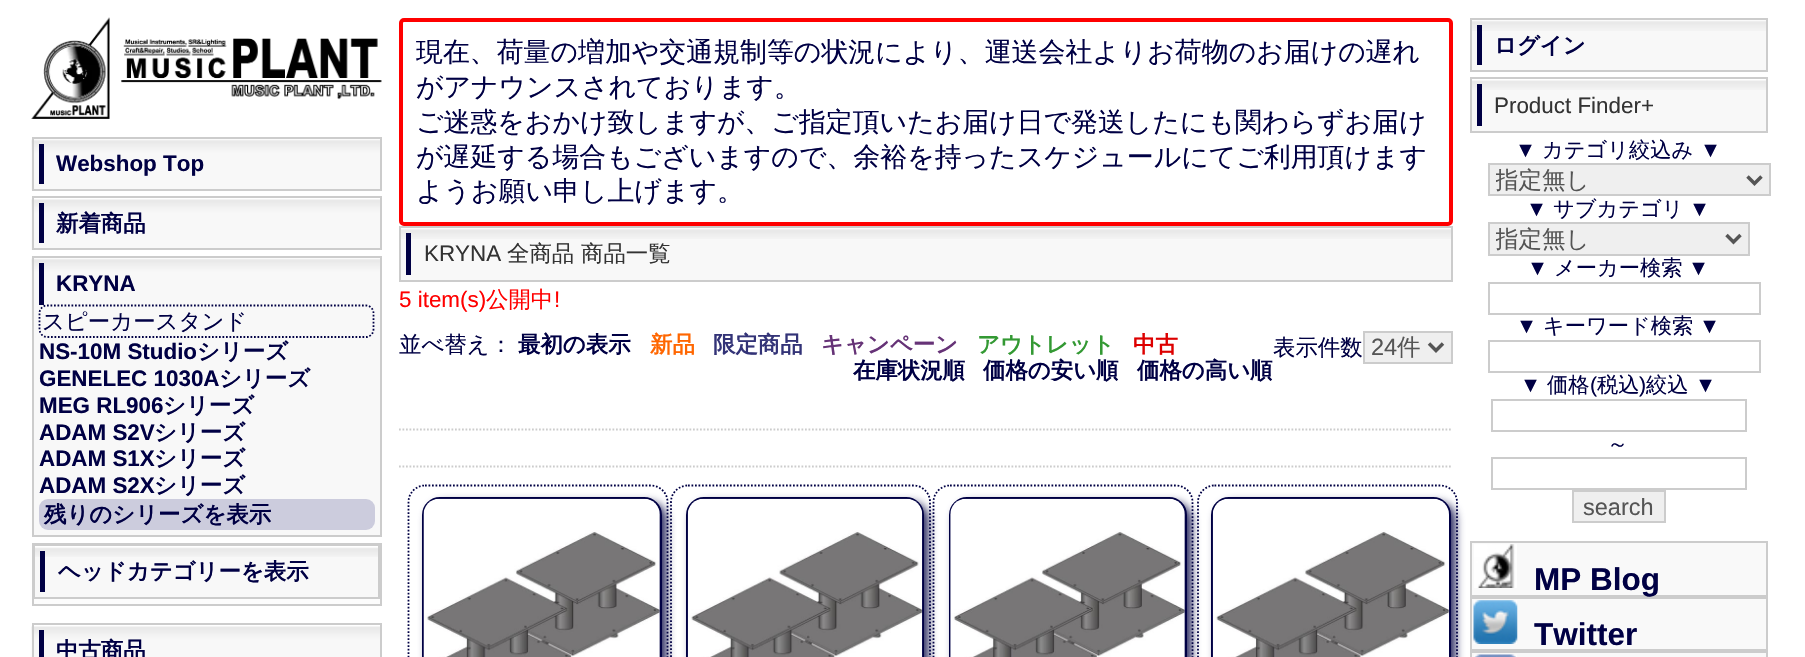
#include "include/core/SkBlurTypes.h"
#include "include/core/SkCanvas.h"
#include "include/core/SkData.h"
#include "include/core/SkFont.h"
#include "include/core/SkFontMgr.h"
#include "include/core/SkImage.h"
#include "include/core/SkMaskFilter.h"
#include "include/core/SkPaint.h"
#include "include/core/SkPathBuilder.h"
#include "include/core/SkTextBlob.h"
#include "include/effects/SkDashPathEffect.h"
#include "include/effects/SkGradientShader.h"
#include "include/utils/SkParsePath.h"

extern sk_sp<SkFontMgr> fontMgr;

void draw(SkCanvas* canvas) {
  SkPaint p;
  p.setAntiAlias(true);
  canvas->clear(SK_ColorWHITE);
  canvas->drawImageRect(SkImages::DeferredFromEncodedData(SkData::MakeFromFileName("images/1.png")), SkRect::MakeLTRB(31, 17, 382, 119), SkSamplingOptions());
  canvas->drawImageRect(SkImages::DeferredFromEncodedData(SkData::MakeFromFileName("images/2.png")), SkRect::MakeLTRB(31, 138, 380, 190), SkSamplingOptions());
  p.setStyle(SkPaint::kStroke_Style);
  p.setStrokeWidth(2);
  p.setColor(SkColorSetRGB(204, 204, 204));
  canvas->drawRect(SkRect::MakeLTRB(33, 138, 381, 190), p);
  p.setStyle(SkPaint::kFill_Style);
  p.setColor(SkColorSetRGB(0, 0, 68));
  canvas->drawRect(SkRect::MakeLTRB(39, 144, 44, 184), p);
  canvas->drawImageRect(SkImages::DeferredFromEncodedData(SkData::MakeFromFileName("images/3.png")), SkRect::MakeLTRB(31, 198, 380, 250), SkSamplingOptions());
  p.setStyle(SkPaint::kStroke_Style);
  p.setColor(SkColorSetRGB(204, 204, 204));
  canvas->drawRect(SkRect::MakeLTRB(33, 197, 381, 249), p);
  p.setStyle(SkPaint::kFill_Style);
  p.setColor(SkColorSetRGB(0, 0, 68));
  canvas->drawRect(SkRect::MakeLTRB(39, 203, 44, 243), p);
  p.setColor(SkColorSetRGB(248, 248, 248));
  canvas->drawRect(SkRect::MakeLTRB(34, 320, 380, 535), p);
  canvas->drawImageRect(SkImages::DeferredFromEncodedData(SkData::MakeFromFileName("images/4.png")), SkRect::MakeLTRB(31, 257, 380, 320), SkSamplingOptions());
  p.setStyle(SkPaint::kStroke_Style);
  p.setColor(SkColorSetRGB(204, 204, 204));
  canvas->drawRect(SkRect::MakeLTRB(33, 257, 381, 536), p);
  p.setStyle(SkPaint::kFill_Style);
  p.setColor(SkColorSetRGB(0, 0, 68));
  canvas->drawRect(SkRect::MakeLTRB(39, 263, 44, 305), p);
  p.setStyle(SkPaint::kStroke_Style);
  p.setStrokeWidth(1.8f);
  p.setPathEffect(SkDashPathEffect::Make({{1.75f, 1.75f}}, 0));
  canvas->drawPath(SkPathBuilder().moveTo(47, 305.5f).lineTo(366, 305.5f).cubicTo(370, 305.5f, 373.5f, 309, 373.5f, 313).lineTo(373.5f, 329).cubicTo(373.5f, 333.5f, 370, 337, 366, 337).lineTo(47, 337).cubicTo(43, 337, 39.5f, 333.5f, 39.5f, 329).lineTo(39.5f, 313).cubicTo(39.5f, 309, 43, 305.5f, 47, 305.5f).close().detach(), p);
  p.setPathEffect(nullptr);
  p.setStyle(SkPaint::kFill_Style);
  p.setColor(SkColorSetRGB(204, 204, 221));
  canvas->drawRoundRect(SkRect::MakeLTRB(39, 499, 375, 530), 9, 9, p);
  p.setColor(SkColorSetRGB(252, 252, 252));
  canvas->drawRect(SkRect::MakeLTRB(34, 599, 380, 604), p);
  p.setStyle(SkPaint::kStroke_Style);
  p.setStrokeWidth(2);
  p.setColor(SkColorSetRGB(204, 204, 204));
  canvas->drawRect(SkRect::MakeLTRB(33, 544, 381, 605), p);
  p.setStyle(SkPaint::kFill_Style);
  p.setColor(SkColorSetRGB(248, 248, 248));
  canvas->drawRect(SkRect::MakeLTRB(35, 557, 378, 597), p);
  canvas->drawImageRect(SkImages::DeferredFromEncodedData(SkData::MakeFromFileName("images/5.png")), SkRect::MakeLTRB(35, 546, 378, 557), SkSamplingOptions());
  p.setStyle(SkPaint::kStroke_Style);
  p.setColor(SkColorSetRGB(204, 204, 204));
  canvas->drawRect(SkRect::MakeLTRB(34, 545, 379, 598), p);
  p.setStyle(SkPaint::kFill_Style);
  p.setColor(SkColorSetRGB(0, 0, 68));
  canvas->drawRect(SkRect::MakeLTRB(40, 551, 45, 592), p);
  canvas->drawImageRect(SkImages::DeferredFromEncodedData(SkData::MakeFromFileName("images/6.png")), SkRect::MakeLTRB(31, 625, 380, 657), SkSamplingOptions());
  p.setStyle(SkPaint::kStroke_Style);
  p.setColor(SkColorSetRGB(204, 204, 204));
  canvas->drawRect(SkRect::MakeLTRB(33, 624, 381, 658), p);
  p.setStyle(SkPaint::kFill_Style);
  p.setColor(SkColorSetRGB(0, 0, 68));
  canvas->drawRect(SkRect::MakeLTRB(39, 630, 44, 657), p);
  p.setStyle(SkPaint::kStroke_Style);
  p.setStrokeWidth(4);
  p.setColor(SkColorSetRGB(255, 0, 0));
  canvas->drawRoundRect(SkRect::MakeLTRB(401, 20, 1451, 224), 3, 3, p);
  p.setStyle(SkPaint::kFill_Style);
  p.setColor(SkColorSetRGB(248, 248, 248));
  canvas->drawRect(SkRect::MakeLTRB(401, 239, 1451, 280), p);
  canvas->drawImageRect(SkImages::DeferredFromEncodedData(SkData::MakeFromFileName("images/7.png")), SkRect::MakeLTRB(401, 228, 1451, 239), SkSamplingOptions());
  p.setStyle(SkPaint::kStroke_Style);
  p.setStrokeWidth(2);
  p.setColor(SkColorSetRGB(204, 204, 204));
  canvas->drawRect(SkRect::MakeLTRB(400, 227, 1452, 281), p);
  p.setStyle(SkPaint::kFill_Style);
  p.setColor(SkColorSetRGB(0, 0, 68));
  canvas->drawRect(SkRect::MakeLTRB(406, 233, 411, 275), p);
  p.setStyle(SkPaint::kStroke_Style);
  p.setStrokeWidth(1.8f);
  p.setColor(SkColorSetRGB(204, 204, 204));
  p.setPathEffect(SkDashPathEffect::Make({{1.75f, 1.75f}}, 0));
  canvas->drawPath(SkPathBuilder().moveTo(399, 466.5f).lineTo(1452.5f, 466.5f).detach(), p);
  p.setPathEffect(nullptr);
  p.setPathEffect(SkDashPathEffect::Make({{1.75f, 1.75f}}, 0));
  canvas->drawPath(SkPathBuilder().moveTo(399, 429.5f).lineTo(1452.5f, 429.5f).detach(), p);
  p.setPathEffect(nullptr);
  p.setStyle(SkPaint::kFill_Style);
  p.setColor(SkColorSetRGB(239, 239, 239));
  canvas->drawRect(SkRect::MakeLTRB(1364, 332, 1452, 363), p);
  p.setStyle(SkPaint::kStroke_Style);
  p.setStrokeWidth(2);
  p.setColor(SkColorSetRGB(204, 204, 204));
  canvas->drawRect(SkRect::MakeLTRB(1364, 332, 1452, 363), p);
  p.setStrokeWidth(3.5f);
  p.setColor(SkColorSetRGB(85, 85, 85));
  canvas->drawPath(SkPathBuilder().moveTo(1429, 343.5f).lineTo(1436, 350.5f).lineTo(1443, 343.5f).detach(), p);
  p.setStrokeWidth(1.8f);
  p.setColor(SkColorSetRGB(0, 0, 68));
  p.setPathEffect(SkDashPathEffect::Make({{1.75f, 1.75f}}, 0));
  canvas->drawPath(SkPathBuilder().moveTo(425, 485.5f).lineTo(651, 485.5f).cubicTo(660, 485.5f, 667.5f, 493, 667.5f, 502).lineTo(667.5f, 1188).cubicTo(667.5f, 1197.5f, 660, 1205, 651, 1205).lineTo(425, 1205).cubicTo(416, 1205, 408.5f, 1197.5f, 408.5f, 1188).lineTo(408.5f, 502).cubicTo(408.5f, 493, 416, 485.5f, 425, 485.5f).close().detach(), p);
  p.setPathEffect(nullptr);
  p.setStyle(SkPaint::kFill_Style);
  p.setColor(SkColorSetARGB(204, 0, 0, 64));
  p.setMaskFilter(SkMaskFilter::MakeBlur(kNormal_SkBlurStyle, 4.5f));
  canvas->drawRoundRect(SkRect::MakeLTRB(427, 502, 667, 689), 18, 18, p);
  p.setMaskFilter(nullptr);
  p.setStyle(SkPaint::kStroke_Style);
  p.setStrokeWidth(2);
  p.setColor(SkColorSetRGB(0, 0, 68));
  canvas->drawRoundRect(SkRect::MakeLTRB(423, 498, 661, 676), 17, 17, p);
  canvas->drawImageRect(SkImages::DeferredFromEncodedData(SkData::MakeFromFileName("images/8.png")), SkRect::MakeLTRB(423, 498, 660, 657), SkSamplingOptions());
  p.setStrokeWidth(1.8f);
  p.setPathEffect(SkDashPathEffect::Make({{1.75f, 1.75f}}, 0));
  canvas->drawPath(SkPathBuilder().moveTo(688, 485.5f).lineTo(913.5f, 485.5f).cubicTo(922.5f, 485.5f, 930, 493, 930, 502).lineTo(930, 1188).cubicTo(930, 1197.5f, 922.5f, 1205, 913.5f, 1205).lineTo(688, 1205).cubicTo(678.5f, 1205, 671, 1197.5f, 671, 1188).lineTo(671, 502).cubicTo(671, 493, 678.5f, 485.5f, 688, 485.5f).close().detach(), p);
  p.setPathEffect(nullptr);
  p.setStyle(SkPaint::kFill_Style);
  p.setColor(SkColorSetARGB(204, 0, 0, 64));
  p.setMaskFilter(SkMaskFilter::MakeBlur(kNormal_SkBlurStyle, 4.5f));
  canvas->drawRoundRect(SkRect::MakeLTRB(691, 502, 929, 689), 18, 18, p);
  p.setMaskFilter(nullptr);
  p.setStyle(SkPaint::kStroke_Style);
  p.setStrokeWidth(2);
  p.setColor(SkColorSetRGB(0, 0, 68));
  canvas->drawRoundRect(SkRect::MakeLTRB(687, 498, 923, 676), 17, 17, p);
  canvas->drawImageRect(SkImages::DeferredFromEncodedData(SkData::MakeFromFileName("images/9.png")), SkRect::MakeLTRB(687, 498, 923, 657), SkSamplingOptions());
  p.setStrokeWidth(1.8f);
  p.setPathEffect(SkDashPathEffect::Make({{1.75f, 1.75f}}, 0));
  canvas->drawPath(SkPathBuilder().moveTo(950, 485.5f).lineTo(1176, 485.5f).cubicTo(1185, 485.5f, 1192.5f, 493, 1192.5f, 502).lineTo(1192.5f, 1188).cubicTo(1192.5f, 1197.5f, 1185, 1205, 1176, 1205).lineTo(950, 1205).cubicTo(941, 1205, 933.5f, 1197.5f, 933.5f, 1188).lineTo(933.5f, 502).cubicTo(933.5f, 493, 941, 485.5f, 950, 485.5f).close().detach(), p);
  p.setPathEffect(nullptr);
  p.setStyle(SkPaint::kFill_Style);
  p.setColor(SkColorSetARGB(204, 0, 0, 64));
  p.setMaskFilter(SkMaskFilter::MakeBlur(kNormal_SkBlurStyle, 4.5f));
  canvas->drawRoundRect(SkRect::MakeLTRB(954, 502, 1192, 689), 18, 18, p);
  p.setMaskFilter(nullptr);
  p.setStyle(SkPaint::kStroke_Style);
  p.setStrokeWidth(2);
  p.setColor(SkColorSetRGB(0, 0, 68));
  canvas->drawRoundRect(SkRect::MakeLTRB(950, 498, 1186, 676), 17, 17, p);
  canvas->drawImageRect(SkImages::DeferredFromEncodedData(SkData::MakeFromFileName("images/10.png")), SkRect::MakeLTRB(950, 498, 1185, 657), SkSamplingOptions());
  p.setStrokeWidth(1.8f);
  p.setPathEffect(SkDashPathEffect::Make({{1.75f, 1.75f}}, 0));
  canvas->drawPath(SkPathBuilder().moveTo(1214.5f, 485.5f).lineTo(1440, 485.5f).cubicTo(1449.5f, 485.5f, 1457, 493, 1457, 502).lineTo(1457, 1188).cubicTo(1457, 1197.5f, 1449.5f, 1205, 1440, 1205).lineTo(1214.5f, 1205).cubicTo(1205.5f, 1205, 1198, 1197.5f, 1198, 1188).lineTo(1198, 502).cubicTo(1198, 493, 1205.5f, 485.5f, 1214.5f, 485.5f).close().detach(), p);
  p.setPathEffect(nullptr);
  p.setStyle(SkPaint::kFill_Style);
  p.setColor(SkColorSetARGB(204, 0, 0, 64));
  p.setMaskFilter(SkMaskFilter::MakeBlur(kNormal_SkBlurStyle, 4.5f));
  canvas->drawRoundRect(SkRect::MakeLTRB(1216, 502, 1456, 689), 18, 18, p);
  p.setMaskFilter(nullptr);
  p.setStyle(SkPaint::kStroke_Style);
  p.setStrokeWidth(2);
  p.setColor(SkColorSetRGB(0, 0, 68));
  canvas->drawRoundRect(SkRect::MakeLTRB(1212, 498, 1450, 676), 17, 17, p);
  canvas->drawImageRect(SkImages::DeferredFromEncodedData(SkData::MakeFromFileName("images/11.png")), SkRect::MakeLTRB(1212, 498, 1449, 657), SkSamplingOptions());
  p.setStyle(SkPaint::kFill_Style);
  p.setColor(SkColorSetRGB(248, 248, 248));
  canvas->drawRect(SkRect::MakeLTRB(1472, 31, 1766, 70), p);
  canvas->drawImageRect(SkImages::DeferredFromEncodedData(SkData::MakeFromFileName("images/12.png")), SkRect::MakeLTRB(1472, 20, 1766, 31), SkSamplingOptions());
  p.setStyle(SkPaint::kStroke_Style);
  p.setColor(SkColorSetRGB(204, 204, 204));
  canvas->drawRect(SkRect::MakeLTRB(1471, 19, 1767, 71), p);
  p.setStyle(SkPaint::kFill_Style);
  p.setColor(SkColorSetRGB(0, 0, 68));
  canvas->drawRect(SkRect::MakeLTRB(1477, 25, 1482, 65), p);
  p.setColor(SkColorSetRGB(248, 248, 248));
  canvas->drawRect(SkRect::MakeLTRB(1472, 90, 1766, 131), p);
  canvas->drawImageRect(SkImages::DeferredFromEncodedData(SkData::MakeFromFileName("images/13.png")), SkRect::MakeLTRB(1472, 79, 1766, 90), SkSamplingOptions());
  p.setStyle(SkPaint::kStroke_Style);
  p.setColor(SkColorSetRGB(204, 204, 204));
  canvas->drawRect(SkRect::MakeLTRB(1471, 78, 1767, 132), p);
  p.setStyle(SkPaint::kFill_Style);
  p.setColor(SkColorSetRGB(0, 0, 68));
  canvas->drawRect(SkRect::MakeLTRB(1477, 84, 1482, 126), p);
  p.setColor(SkColorSetRGB(239, 239, 239));
  canvas->drawRect(SkRect::MakeLTRB(1489, 164, 1770, 195), p);
  p.setStyle(SkPaint::kStroke_Style);
  p.setColor(SkColorSetRGB(204, 204, 204));
  canvas->drawRect(SkRect::MakeLTRB(1489, 164, 1770, 195), p);
  p.setStrokeWidth(3.5f);
  p.setColor(SkColorSetRGB(85, 85, 85));
  canvas->drawPath(SkPathBuilder().moveTo(1747.5f, 176.5f).lineTo(1754.5f, 183.5f).lineTo(1761.5f, 176.5f).detach(), p);
  p.setStyle(SkPaint::kFill_Style);
  p.setColor(SkColorSetRGB(239, 239, 239));
  canvas->drawRect(SkRect::MakeLTRB(1489, 223, 1749, 255), p);
  p.setStyle(SkPaint::kStroke_Style);
  p.setStrokeWidth(2);
  p.setColor(SkColorSetRGB(204, 204, 204));
  canvas->drawRect(SkRect::MakeLTRB(1489, 223, 1749, 255), p);
  p.setStrokeWidth(3.5f);
  p.setColor(SkColorSetRGB(85, 85, 85));
  canvas->drawPath(SkPathBuilder().moveTo(1726.5f, 235).lineTo(1733.5f, 242).lineTo(1740.5f, 235).detach(), p);
  p.setStrokeWidth(2);
  p.setColor(SkColorSetRGB(204, 204, 204));
  canvas->drawRect(SkRect::MakeLTRB(1489, 283, 1760, 314), p);
  canvas->drawRect(SkRect::MakeLTRB(1489, 341, 1760, 372), p);
  canvas->drawRect(SkRect::MakeLTRB(1492, 400, 1746, 431), p);
  canvas->drawRect(SkRect::MakeLTRB(1492, 458, 1746, 489), p);
  p.setStyle(SkPaint::kFill_Style);
  p.setColor(SkColorSetRGB(239, 239, 239));
  canvas->drawRect(SkRect::MakeLTRB(1573, 491, 1665, 522), p);
  p.setStyle(SkPaint::kStroke_Style);
  p.setColor(SkColorSetRGB(204, 204, 204));
  canvas->drawRect(SkRect::MakeLTRB(1573, 491, 1665, 522), p);
  p.setStyle(SkPaint::kFill_Style);
  p.setColor(SkColorSetRGB(249, 249, 249));
  canvas->drawRect(SkRect::MakeLTRB(1471, 542, 1767, 596), p);
  p.setStyle(SkPaint::kStroke_Style);
  p.setColor(SkColorSetRGB(204, 204, 204));
  canvas->drawRect(SkRect::MakeLTRB(1471, 542, 1767, 596), p);
  canvas->drawImageRect(SkImages::DeferredFromEncodedData(SkData::MakeFromFileName("images/14.png")), SkRect::MakeLTRB(1474, 544, 1517, 588), SkSamplingOptions());
  p.setStyle(SkPaint::kFill_Style);
  p.setColor(SkColorSetRGB(249, 249, 249));
  canvas->drawRect(SkRect::MakeLTRB(1471, 598, 1767, 650), p);
  p.setStyle(SkPaint::kStroke_Style);
  p.setColor(SkColorSetRGB(204, 204, 204));
  canvas->drawRect(SkRect::MakeLTRB(1471, 598, 1767, 650), p);
  canvas->drawImageRect(SkImages::DeferredFromEncodedData(SkData::MakeFromFileName("images/15.png")), SkRect::MakeLTRB(1473, 600, 1518, 644), SkSamplingOptions());
  p.setStyle(SkPaint::kFill_Style);
  p.setColor(SkColorSetRGB(249, 249, 249));
  canvas->drawRect(SkRect::MakeLTRB(1471, 652, 1767, 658), p);
  p.setStyle(SkPaint::kStroke_Style);
  p.setColor(SkColorSetRGB(204, 204, 204));
  canvas->drawRect(SkRect::MakeLTRB(1471, 652, 1767, 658), p);
  canvas->drawImageRect(SkImages::DeferredFromEncodedData(SkData::MakeFromFileName("images/16.png")), SkRect::MakeLTRB(1474, 654, 1517, 657), SkSamplingOptions());
  SkFont font1(fontMgr->matchFamilyStyle("Liberation Sans", SkFontStyle::Bold()), 22.4f);
  font1.setSubpixel(true);
  p.setStyle(SkPaint::kFill_Style);
  p.setColor(SkColorSetRGB(0, 0, 68));
  canvas->drawString("Webshop Top", 56, 171, font1, p);
  SkFont font2(fontMgr->matchFamilyStyle("WenQuanYi Zen Hei", SkFontStyle::Bold()), 22.4f);
  font2.setSubpixel(true);
  canvas->drawString("新着商品", 56, 231, font2, p);
  canvas->drawString("KRYNA", 56, 291, font1, p);
  SkFont font3(fontMgr->matchFamilyStyle("WenQuanYi Zen Hei", SkFontStyle(500, SkFontStyle::kNormal_Width, SkFontStyle::kUpright_Slant)), 22.4f);
  font3.setSubpixel(true);
  canvas->drawString("スピーカースタンド", 42, 329, font3, p);
  canvas->drawString("NS-10M Studio", 39, 359, font1, p);
  canvas->drawString("シリーズ", 197, 359, font2, p);
  canvas->drawString("GENELEC 1030A", 39, 386, font1, p);
  canvas->drawString("シリーズ", 219, 386, font2, p);
  canvas->drawString("MEG RL906", 39, 413, font1, p);
  canvas->drawString("シリーズ", 163, 413, font2, p);
  canvas->drawString("ADAM S2V", 39, 440, font1, p);
  canvas->drawString("シリーズ", 154, 440, font2, p);
  canvas->drawString("ADAM S1X", 39, 466, font1, p);
  canvas->drawString("シリーズ", 154, 466, font2, p);
  canvas->drawString("ADAM S2X", 39, 493, font1, p);
  canvas->drawString("シリーズ", 154, 493, font2, p);
  canvas->drawString("残りのシリーズを表示", 44, 522, font2, p);
  canvas->drawString("ヘッドカテゴリーを表示", 58, 579, font2, p);
  canvas->drawString("中古商品", 56, 658, font2, p);
  SkFont font4(fontMgr->matchFamilyStyle("WenQuanYi Zen Hei", SkFontStyle(500, SkFontStyle::kNormal_Width, SkFontStyle::kUpright_Slant)), 26.9f);
  font4.setSubpixel(true);
  canvas->drawString("現在、荷量の増加や交通規制等の状況により、運送会社よりお荷物のお届けの遅れ", 416, 61, font4, p);
  canvas->drawString("がアナウンスされております。", 416, 96, font4, p);
  canvas->drawString("ご迷惑をおかけ致しますが、ご指定頂いたお届け日で発送したにも関わらずお届け", 416, 131, font4, p);
  canvas->drawString("が遅延する場合もございますので、余裕を持ったスケジュールにてご利用頂けます", 416, 166, font4, p);
  canvas->drawString("ようお願い申し上げます。", 416, 200, font4, p);
  SkFont font5(fontMgr->matchFamilyStyle("Liberation Sans", SkFontStyle::Normal()), 22.4f);
  font5.setSubpixel(true);
  p.setColor(SkColorSetRGB(51, 51, 51));
  canvas->drawString("KRYNA", 424, 261, font5, p);
  canvas->drawString("全商品", 507, 261, font3, p);
  canvas->drawString("商品一覧", 581, 261, font3, p);
  p.setColor(SkColorSetRGB(255, 0, 0));
  canvas->drawString("5 item(s)", 399, 307, font5, p);
  canvas->drawString("公開中", 486, 307, font3, p);
  canvas->drawString("!", 554, 307, font5, p);
  p.setColor(SkColorSetRGB(0, 0, 68));
  canvas->drawString("並べ替え：", 399, 352, font3, p);
  canvas->drawString("最初の表示", 518, 352, font2, p);
  p.setColor(SkColorSetRGB(255, 102, 0));
  canvas->drawString("新品", 650, 352, font2, p);
  p.setColor(SkColorSetRGB(51, 51, 119));
  canvas->drawString("限定商品", 713, 352, font2, p);
  p.setColor(SkColorSetRGB(102, 51, 119));
  canvas->drawString("キャンペーン", 821, 352, font2, p);
  p.setColor(SkColorSetRGB(51, 153, 51));
  canvas->drawString("アウトレット", 977, 352, font2, p);
  p.setColor(SkColorSetRGB(221, 0, 0));
  canvas->drawString("中古", 1133, 352, font2, p);
  p.setColor(SkColorSetRGB(0, 0, 68));
  canvas->drawString("表示件数", 1273, 355, font3, p);
  SkFont font6(fontMgr->matchFamilyStyle("Liberation Sans", SkFontStyle::Normal()), 23.5f);
  font6.setSubpixel(true);
  p.setColor(SkColorSetRGB(85, 85, 85));
  canvas->drawString("24", 1371, 355, font6, p);
  SkFont font7(fontMgr->matchFamilyStyle("WenQuanYi Zen Hei", SkFontStyle(500, SkFontStyle::kNormal_Width, SkFontStyle::kUpright_Slant)), 23.5f);
  font7.setSubpixel(true);
  canvas->drawString("件", 1397, 355, font7, p);
  p.setColor(SkColorSetRGB(0, 0, 68));
  canvas->drawString("在庫状況順", 853, 378, font2, p);
  canvas->drawString("価格の安い順", 983, 378, font2, p);
  canvas->drawString("価格の高い順", 1137, 378, font2, p);
  canvas->drawString("ログイン", 1494, 53, font2, p);
  p.setColor(SkColorSetRGB(51, 51, 51));
  canvas->drawString("Product Finder+", 1494, 113, font5, p);
  SkFont font8(fontMgr->matchFamilyStyle("Liberation Sans", SkFontStyle::Normal()), 21.25f);
  font8.setSubpixel(true);
  p.setColor(SkColorSetRGB(0, 0, 68));
  canvas->drawString("▼", 1515, 157, font8, p);
  SkFont font9(fontMgr->matchFamilyStyle("WenQuanYi Zen Hei", SkFontStyle(500, SkFontStyle::kNormal_Width, SkFontStyle::kUpright_Slant)), 21.25f);
  font9.setSubpixel(true);
  canvas->drawString("カテゴリ絞込み", 1542, 157, font9, p);
  canvas->drawString("▼", 1700, 157, font8, p);
  canvas->save();
  canvas->clipRect(SkRect::MakeLTRB(1496, 165, 1741, 194));
  p.setColor(SkColorSetRGB(85, 85, 85));
  canvas->drawString("指定無し", 1495, 188, font7, p);
  canvas->restore();
  p.setColor(SkColorSetRGB(0, 0, 68));
  canvas->drawString("▼", 1526, 216, font8, p);
  canvas->drawString("サブカテゴリ", 1553, 216, font9, p);
  canvas->drawString("▼", 1689, 216, font8, p);
  canvas->save();
  canvas->clipRect(SkRect::MakeLTRB(1496, 224, 1720, 254));
  p.setColor(SkColorSetRGB(85, 85, 85));
  canvas->drawString("指定無し", 1495, 247, font7, p);
  canvas->restore();
  p.setColor(SkColorSetRGB(0, 0, 68));
  canvas->drawString("▼", 1527, 275, font8, p);
  canvas->drawString("メーカー検索", 1554, 275, font9, p);
  canvas->drawString("▼", 1688, 275, font8, p);
  canvas->drawString("▼", 1516, 333, font8, p);
  canvas->drawString("キーワード検索", 1543, 333, font9, p);
  canvas->drawString("▼", 1699, 333, font8, p);
  canvas->drawString("▼", 1520, 392, font8, p);
  canvas->drawString("価格", 1547, 392, font9, p);
  canvas->drawString("(", 1590, 392, font8, p);
  canvas->drawString("税込", 1597, 392, font9, p);
  canvas->drawString(")", 1639, 392, font8, p);
  canvas->drawString("絞込", 1646, 392, font9, p);
  canvas->drawString("▼", 1695, 392, font8, p);
  canvas->drawString("～", 1607, 451, font9, p);
  p.setColor(SkColorSetRGB(85, 85, 85));
  canvas->drawString("search", 1583, 515, font6, p);
  SkFont font10(fontMgr->matchFamilyStyle("Liberation Sans", SkFontStyle::Bold()), 31.5f);
  font10.setSubpixel(true);
  p.setColor(SkColorSetRGB(0, 0, 68));
  canvas->drawString("MP Blog", 1534, 590, font10, p);
  canvas->drawString("Twitter", 1534, 645, font10, p);
}
